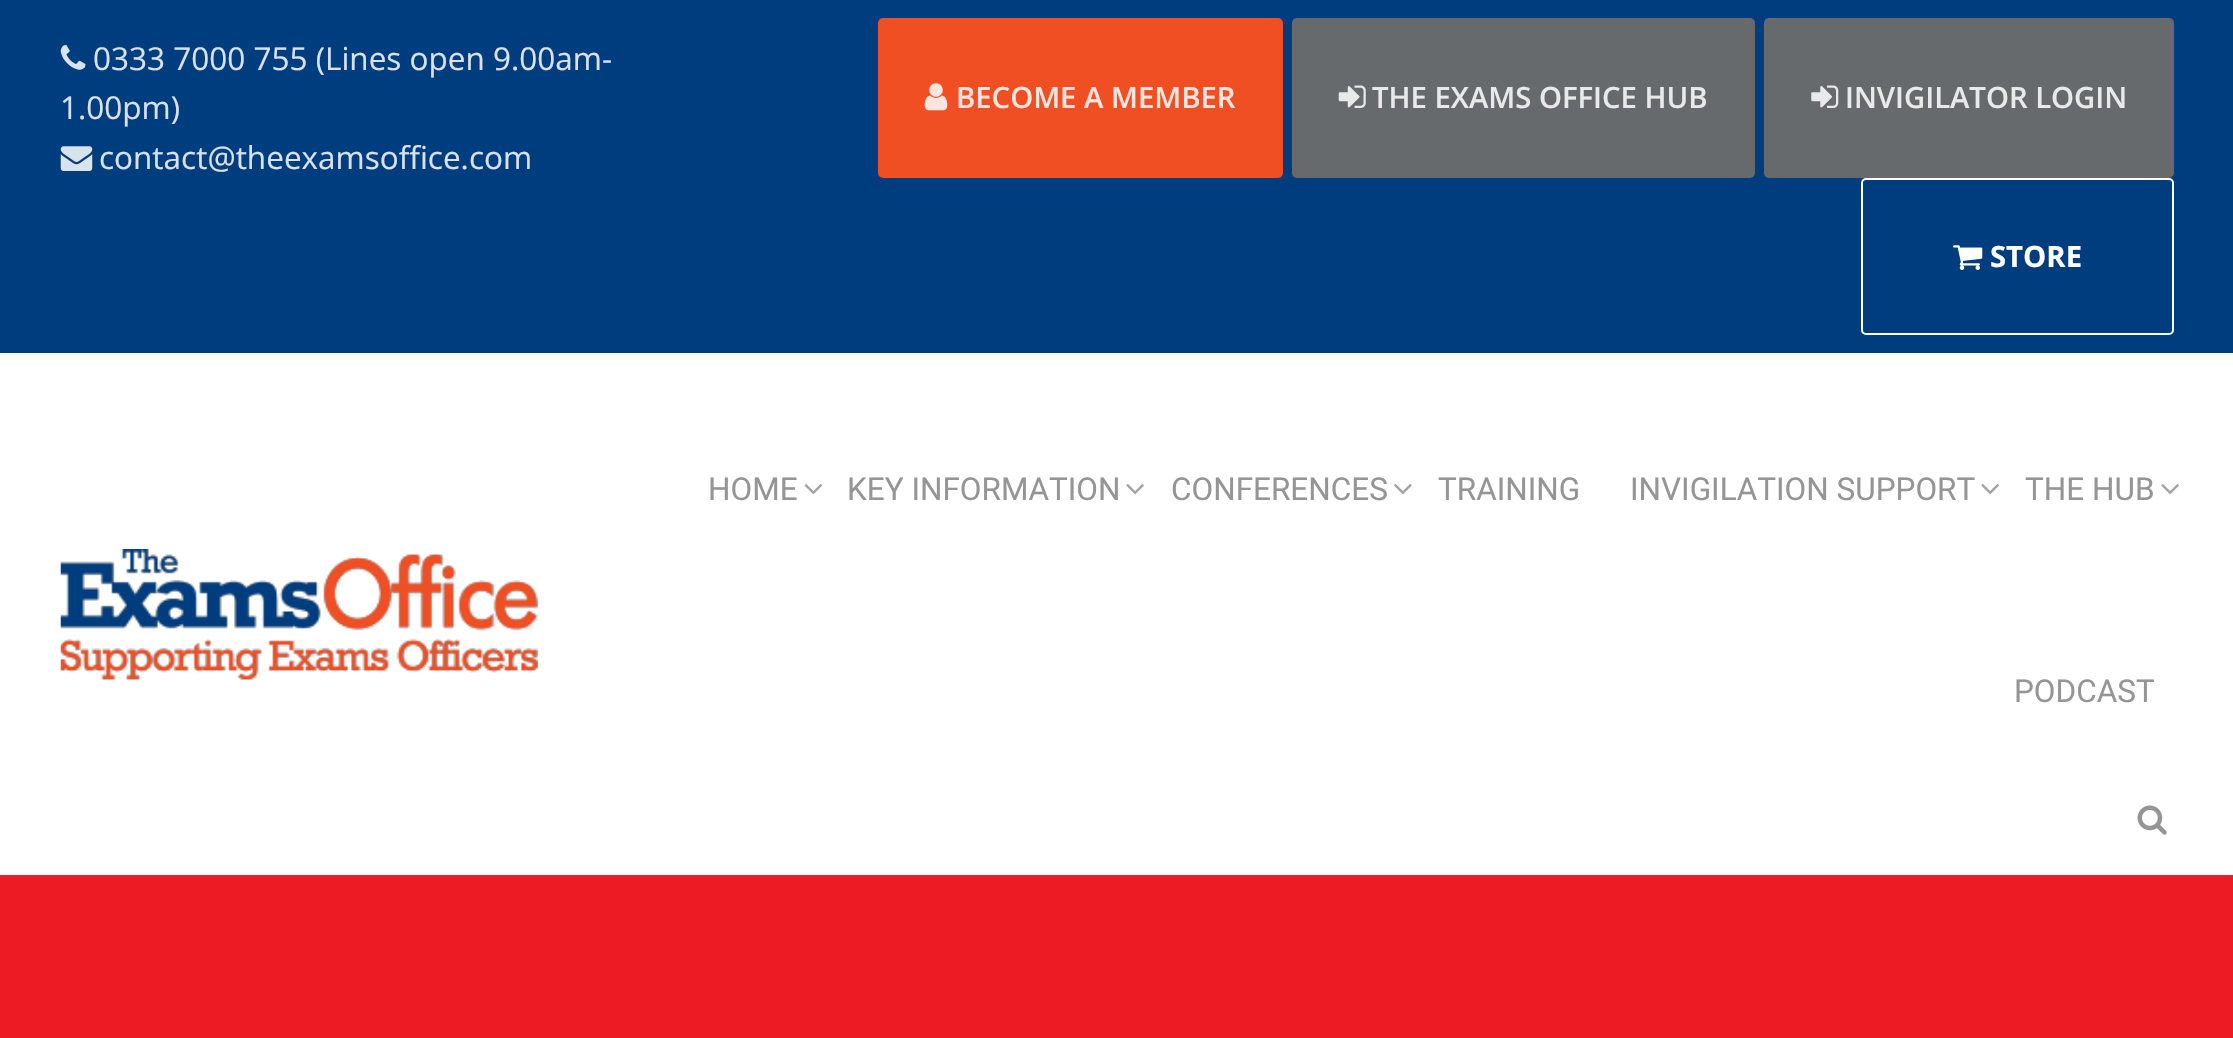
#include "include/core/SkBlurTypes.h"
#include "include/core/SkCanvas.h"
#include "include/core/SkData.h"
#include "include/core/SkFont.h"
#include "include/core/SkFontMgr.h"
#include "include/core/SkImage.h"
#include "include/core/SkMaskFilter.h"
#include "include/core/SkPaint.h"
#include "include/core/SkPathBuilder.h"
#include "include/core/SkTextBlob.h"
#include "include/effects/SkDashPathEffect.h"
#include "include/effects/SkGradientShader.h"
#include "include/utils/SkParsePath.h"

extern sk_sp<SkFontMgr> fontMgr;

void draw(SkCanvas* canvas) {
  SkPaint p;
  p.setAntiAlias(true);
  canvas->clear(SkColorSetRGB(0, 61, 126));
  canvas->drawImageRect(SkImages::DeferredFromEncodedData(SkData::MakeFromFileName("images/1.png")), SkRect::MakeLTRB(60, 45, 86, 70), SkSamplingOptions());
  canvas->drawImageRect(SkImages::DeferredFromEncodedData(SkData::MakeFromFileName("images/2.png")), SkRect::MakeLTRB(60, 146, 93, 171), SkSamplingOptions());
  p.setColor(SkColorSetRGB(240, 78, 35));
  canvas->drawRoundRect(SkRect::MakeLTRB(879, 19, 1282, 177), 4, 4, p);
  p.setStyle(SkPaint::kStroke_Style);
  p.setStrokeWidth(2);
  canvas->drawRoundRect(SkRect::MakeLTRB(879, 19, 1282, 177), 4, 4, p);
  canvas->drawImageRect(SkImages::DeferredFromEncodedData(SkData::MakeFromFileName("images/3.png")), SkRect::MakeLTRB(924, 83, 948, 111), SkSamplingOptions());
  p.setStyle(SkPaint::kFill_Style);
  p.setColor(SkColorSetRGB(102, 106, 109));
  canvas->drawRoundRect(SkRect::MakeLTRB(1293, 19, 1754, 177), 4, 4, p);
  p.setStyle(SkPaint::kStroke_Style);
  canvas->drawRoundRect(SkRect::MakeLTRB(1293, 19, 1754, 177), 4, 4, p);
  canvas->drawImageRect(SkImages::DeferredFromEncodedData(SkData::MakeFromFileName("images/4.png")), SkRect::MakeLTRB(1338, 85, 1366, 108), SkSamplingOptions());
  p.setStyle(SkPaint::kFill_Style);
  canvas->drawRoundRect(SkRect::MakeLTRB(1765, 19, 2173, 177), 4, 4, p);
  p.setStyle(SkPaint::kStroke_Style);
  canvas->drawRoundRect(SkRect::MakeLTRB(1765, 19, 2173, 177), 4, 4, p);
  canvas->drawImageRect(SkImages::DeferredFromEncodedData(SkData::MakeFromFileName("images/5.png")), SkRect::MakeLTRB(1811, 85, 1839, 108), SkSamplingOptions());
  p.setColor(SK_ColorWHITE);
  canvas->drawRoundRect(SkRect::MakeLTRB(1862, 179, 2173, 334), 4, 4, p);
  canvas->drawImageRect(SkImages::DeferredFromEncodedData(SkData::MakeFromFileName("images/6.png")), SkRect::MakeLTRB(1953, 245, 1983, 270), SkSamplingOptions());
  p.setStyle(SkPaint::kFill_Style);
  canvas->drawRect(SkRect::MakeLTRB(0, 353, 2233, 875), p);
  canvas->drawImageRect(SkImages::DeferredFromEncodedData(SkData::MakeFromFileName("images/7.png")), SkRect::MakeLTRB(60, 549, 538, 680), SkSamplingOptions());
  canvas->drawImageRect(SkImages::DeferredFromEncodedData(SkData::MakeFromFileName("images/8.png")), SkRect::MakeLTRB(804, 484, 823, 495), SkSamplingOptions());
  canvas->drawImageRect(SkImages::DeferredFromEncodedData(SkData::MakeFromFileName("images/9.png")), SkRect::MakeLTRB(1126, 484, 1144, 495), SkSamplingOptions());
  canvas->drawImageRect(SkImages::DeferredFromEncodedData(SkData::MakeFromFileName("images/10.png")), SkRect::MakeLTRB(1394, 484, 1412, 495), SkSamplingOptions());
  canvas->drawImageRect(SkImages::DeferredFromEncodedData(SkData::MakeFromFileName("images/9.png")), SkRect::MakeLTRB(1981, 484, 1999, 495), SkSamplingOptions());
  canvas->drawImageRect(SkImages::DeferredFromEncodedData(SkData::MakeFromFileName("images/9.png")), SkRect::MakeLTRB(2161, 484, 2179, 495), SkSamplingOptions());
  canvas->drawImageRect(SkImages::DeferredFromEncodedData(SkData::MakeFromFileName("images/11.png")), SkRect::MakeLTRB(2137, 805, 2167, 835), SkSamplingOptions());
  p.setColor(SkColorSetRGB(237, 28, 36));
  canvas->drawRect(SkRect::MakeLTRB(0, 875, 2233, 1038), p);
  SkFont font1(fontMgr->matchFamilyStyle("Open Sans", SkFontStyle::Normal()), 31.5f);
  font1.setSubpixel(true);
  p.setColor(SkColorSetRGB(217, 226, 236));
  canvas->drawString("0333 7000 755 (Lines open 9.00am-", 93, 70, font1, p);
  canvas->drawString("1.00pm)", 60, 119, font1, p);
  canvas->drawString("contact@theexamsoffice.com", 99, 169, font1, p);
  SkFont font2(fontMgr->matchFamilyStyle("Open Sans", SkFontStyle(600, SkFontStyle::kNormal_Width, SkFontStyle::kUpright_Slant)), 29.25f);
  font2.setSubpixel(true);
  p.setColor(SkColorSetRGB(253, 228, 222));
  canvas->drawString("BECOME A MEMBER", 956, 108, font2, p);
  p.setColor(SkColorSetRGB(232, 233, 233));
  canvas->drawString("THE EXAMS OFFICE HUB", 1372, 108, font2, p);
  canvas->drawString("INVIGILATOR LOGIN", 1845, 108, font2, p);
  SkFont font3(fontMgr->matchFamilyStyle("Open Sans", SkFontStyle::Bold()), 29.25f);
  font3.setSubpixel(true);
  p.setColor(SK_ColorWHITE);
  canvas->drawString("STORE", 1990, 267, font3, p);
  SkFont font4(fontMgr->matchFamilyStyle("Roboto", SkFontStyle::Normal()), 31.5f);
  font4.setSubpixel(true);
  p.setColor(SkColorSetRGB(149, 149, 149));
  canvas->drawString("HOME", 708, 500, font4, p);
  canvas->drawString("KEY INFORMATION", 847, 500, font4, p);
  canvas->drawString("CONFERENCES", 1171, 500, font4, p);
  canvas->drawString("TRAINING", 1438, 500, font4, p);
  canvas->drawString("INVIGILATION SUPPORT", 1630, 500, font4, p);
  canvas->drawString("THE HUB", 2025, 500, font4, p);
  canvas->drawString("PODCAST", 2014, 702, font4, p);
}
